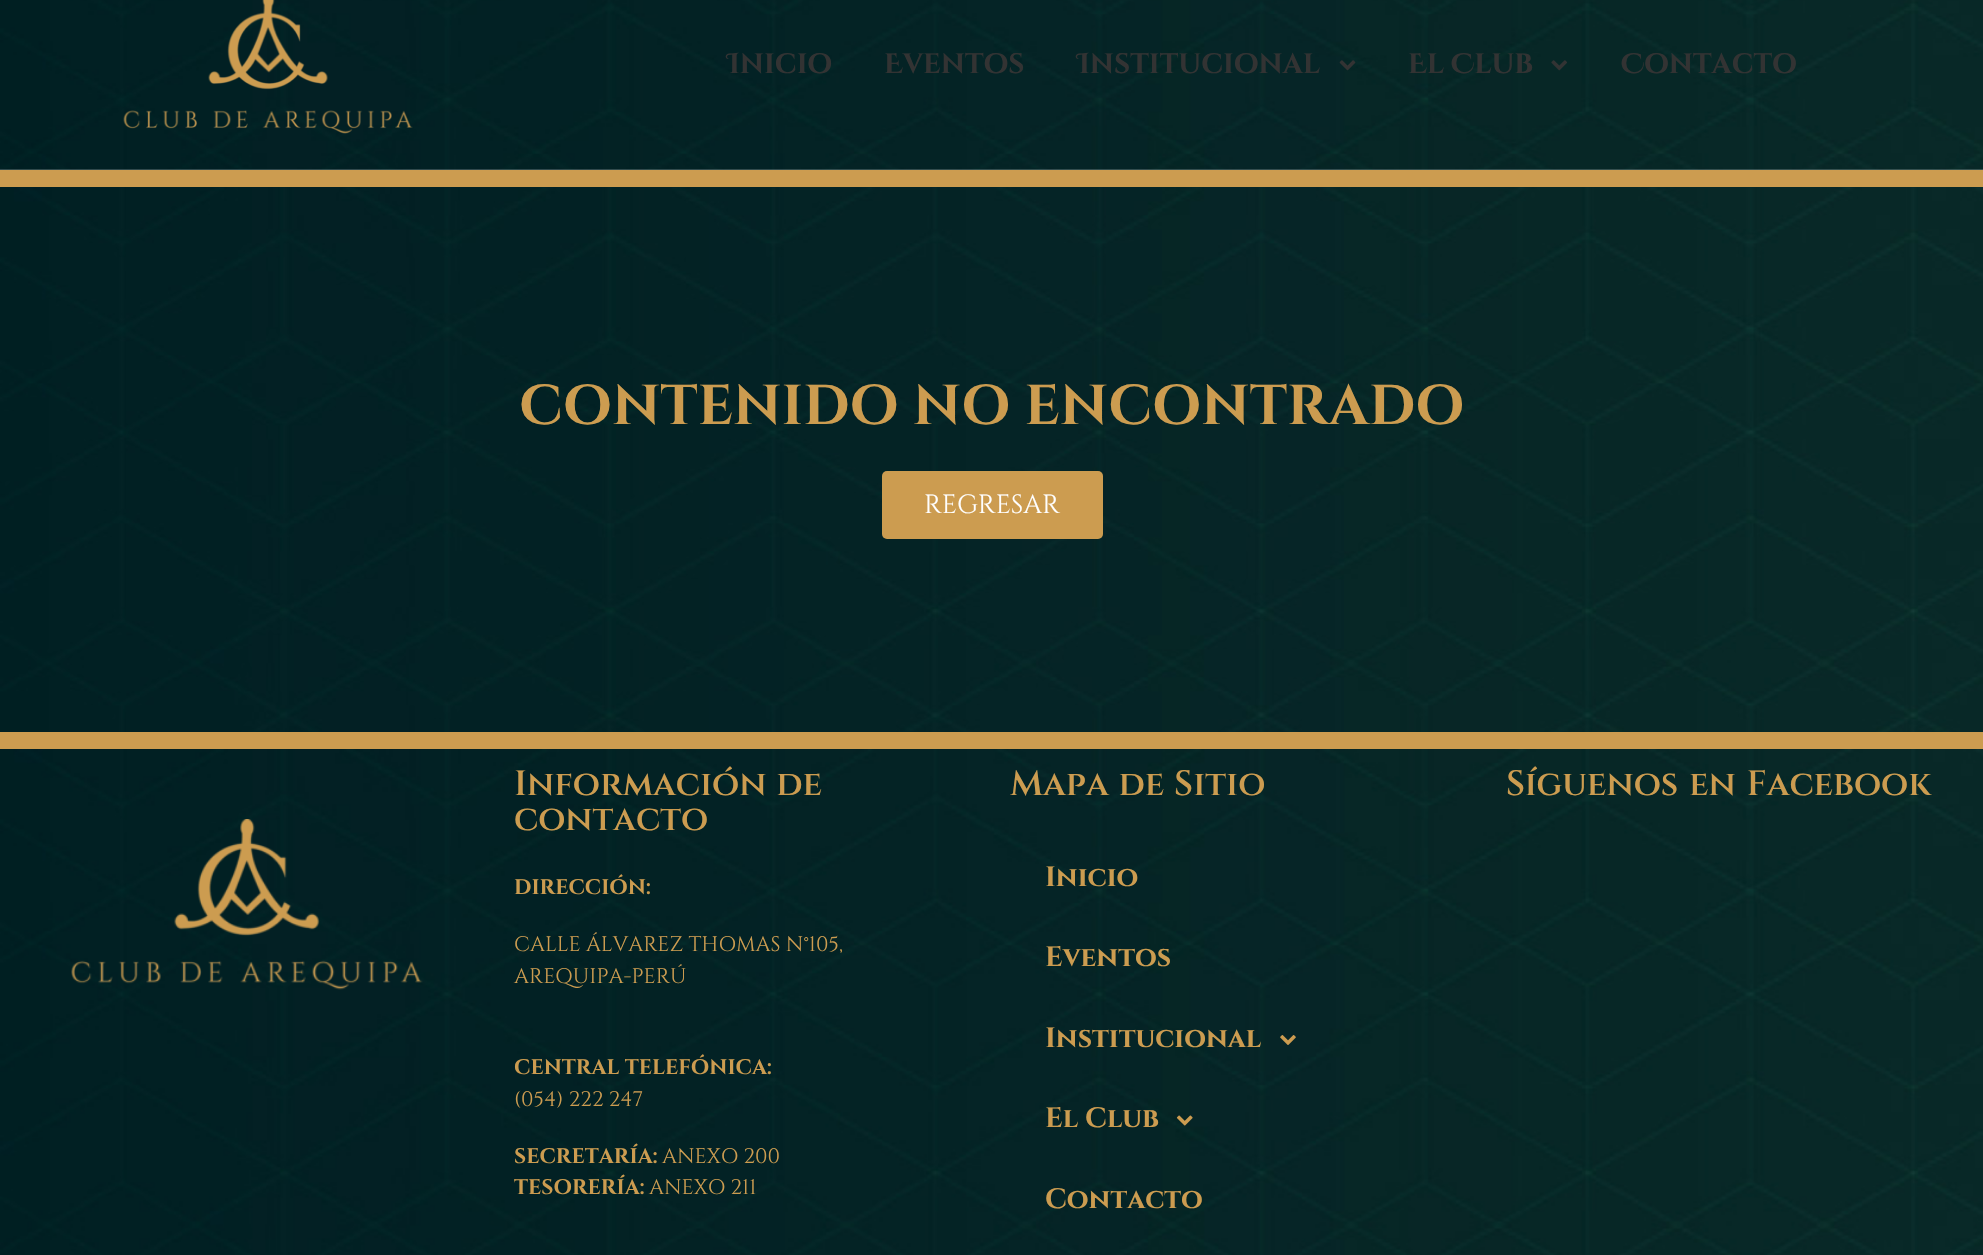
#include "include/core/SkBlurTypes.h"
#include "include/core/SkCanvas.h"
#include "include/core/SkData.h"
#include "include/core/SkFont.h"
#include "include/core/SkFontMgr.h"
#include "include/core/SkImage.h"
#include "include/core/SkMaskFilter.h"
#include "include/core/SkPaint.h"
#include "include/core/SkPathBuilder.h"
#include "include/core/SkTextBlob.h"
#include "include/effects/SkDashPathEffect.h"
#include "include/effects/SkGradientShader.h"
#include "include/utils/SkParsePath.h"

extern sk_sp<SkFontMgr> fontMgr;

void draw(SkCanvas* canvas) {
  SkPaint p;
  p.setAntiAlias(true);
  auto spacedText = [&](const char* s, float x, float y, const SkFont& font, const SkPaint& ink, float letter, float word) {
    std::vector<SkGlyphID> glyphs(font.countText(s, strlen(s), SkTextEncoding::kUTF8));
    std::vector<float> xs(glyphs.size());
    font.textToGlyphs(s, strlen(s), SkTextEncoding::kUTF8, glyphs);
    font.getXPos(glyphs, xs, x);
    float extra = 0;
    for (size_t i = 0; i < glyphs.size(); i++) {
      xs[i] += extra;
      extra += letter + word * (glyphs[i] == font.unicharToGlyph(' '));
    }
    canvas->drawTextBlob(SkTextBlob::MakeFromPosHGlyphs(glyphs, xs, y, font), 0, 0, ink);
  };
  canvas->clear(SK_ColorWHITE);
  canvas->drawImageRect(SkImages::DeferredFromEncodedData(SkData::MakeFromFileName("images/1.png")), SkRect::MakeLTRB(0, 0, 1983, 170), SkSamplingOptions());
  canvas->drawImageRect(SkImages::DeferredFromEncodedData(SkData::MakeFromFileName("images/2.png")), SkRect::MakeLTRB(123, 0, 413, 134), SkSamplingOptions());
  canvas->drawImageRect(SkImages::DeferredFromEncodedData(SkData::MakeFromFileName("images/3.png")), SkRect::MakeLTRB(1339, 60, 1356, 71), SkSamplingOptions());
  canvas->drawImageRect(SkImages::DeferredFromEncodedData(SkData::MakeFromFileName("images/4.png")), SkRect::MakeLTRB(1551, 60, 1567, 71), SkSamplingOptions());
  canvas->drawImageRect(SkImages::DeferredFromEncodedData(SkData::MakeFromFileName("images/5.png")), SkRect::MakeLTRB(0, 169, 1983, 732), SkSamplingOptions());
  p.setColor(SkColorSetRGB(204, 156, 80));
  canvas->drawRect(SkRect::MakeLTRB(0, 170, 1983, 187), p);
  canvas->drawRect(SkRect::MakeLTRB(0, 732, 1983, 749), p);
  canvas->drawRoundRect(SkRect::MakeLTRB(882, 471, 1103, 539), 5, 5, p);
  canvas->drawImageRect(SkImages::DeferredFromEncodedData(SkData::MakeFromFileName("images/6.png")), SkRect::MakeLTRB(0, 749, 1983, 1255), SkSamplingOptions());
  canvas->drawImageRect(SkImages::DeferredFromEncodedData(SkData::MakeFromFileName("images/7.png")), SkRect::MakeLTRB(71, 819, 423, 990), SkSamplingOptions());
  canvas->drawImageRect(SkImages::DeferredFromEncodedData(SkData::MakeFromFileName("images/8.png")), SkRect::MakeLTRB(1280, 1035, 1296, 1045), SkSamplingOptions());
  canvas->drawImageRect(SkImages::DeferredFromEncodedData(SkData::MakeFromFileName("images/9.png")), SkRect::MakeLTRB(1176, 1115, 1193, 1126), SkSamplingOptions());
  SkFont font1(fontMgr->matchFamilyStyle("Cinzel Decorative", SkFontStyle::Bold()), 28);
  font1.setSubpixel(true);
  p.setColor(SkColorSetRGB(51, 51, 51));
  canvas->drawString("Inicio", 727, 73, font1, p);
  canvas->drawString("Eventos", 884, 73, font1, p);
  canvas->drawString("Institucional", 1077, 73, font1, p);
  canvas->drawString("El Club", 1408, 73, font1, p);
  canvas->drawString("Contacto", 1621, 73, font1, p);
  SkFont font2(fontMgr->matchFamilyStyle("Cinzel", SkFontStyle::Bold()), 56);
  font2.setSubpixel(true);
  p.setColor(SkColorSetRGB(204, 156, 80));
  canvas->drawString("CONTENIDO NO ENCONTRADO", 519, 424, font2, p);
  SkFont font3(fontMgr->matchFamilyStyle("Cinzel", SkFontStyle::Normal()), 26.25f);
  font3.setSubpixel(true);
  p.setColor(SK_ColorWHITE);
  canvas->drawString("REGRESAR", 924, 513, font3, p);
  SkFont font4(fontMgr->matchFamilyStyle("Cinzel", SkFontStyle(600, SkFontStyle::kNormal_Width, SkFontStyle::kUpright_Slant)), 35);
  font4.setSubpixel(true);
  p.setColor(SkColorSetRGB(204, 156, 80));
  spacedText("Información de", 514, 795, font4, p, 0, 1);
  canvas->drawString("contacto", 514, 830, font4, p);
  SkFont font5(fontMgr->matchFamilyStyle("Cinzel", SkFontStyle::Bold()), 21);
  font5.setSubpixel(true);
  canvas->drawString("DIRECCIÓN:", 514, 894, font5, p);
  SkFont font6(fontMgr->matchFamilyStyle("Cinzel", SkFontStyle::Normal()), 21);
  font6.setSubpixel(true);
  canvas->drawString("CALLE ÁLVAREZ THOMAS N°105,", 514, 951, font6, p);
  canvas->drawString("AREQUIPA-PERÚ", 514, 983, font6, p);
  canvas->drawString("CENTRAL TELEFÓNICA:", 514, 1074, font5, p);
  canvas->drawString("(054) 222 247", 514, 1106, font6, p);
  canvas->drawString("SECRETARÍA:", 514, 1163, font5, p);
  canvas->drawString("ANEXO 200", 662, 1163, font6, p);
  canvas->drawString("TESORERÍA:", 514, 1194, font5, p);
  canvas->drawString("ANEXO 211", 649, 1194, font6, p);
  spacedText("Mapa de Sitio", 1010, 795, font4, p, 0, 1);
  SkFont font7(fontMgr->matchFamilyStyle("Cinzel", SkFontStyle::Bold()), 28);
  font7.setSubpixel(true);
  canvas->drawString("Inicio", 1045, 886, font7, p);
  canvas->drawString("Eventos", 1045, 966, font7, p);
  canvas->drawString("Institucional", 1045, 1047, font7, p);
  canvas->drawString("El Club", 1045, 1127, font7, p);
  canvas->drawString("Contacto", 1045, 1208, font7, p);
  spacedText("Síguenos en Facebook", 1506, 795, font4, p, 0, 2);
}
